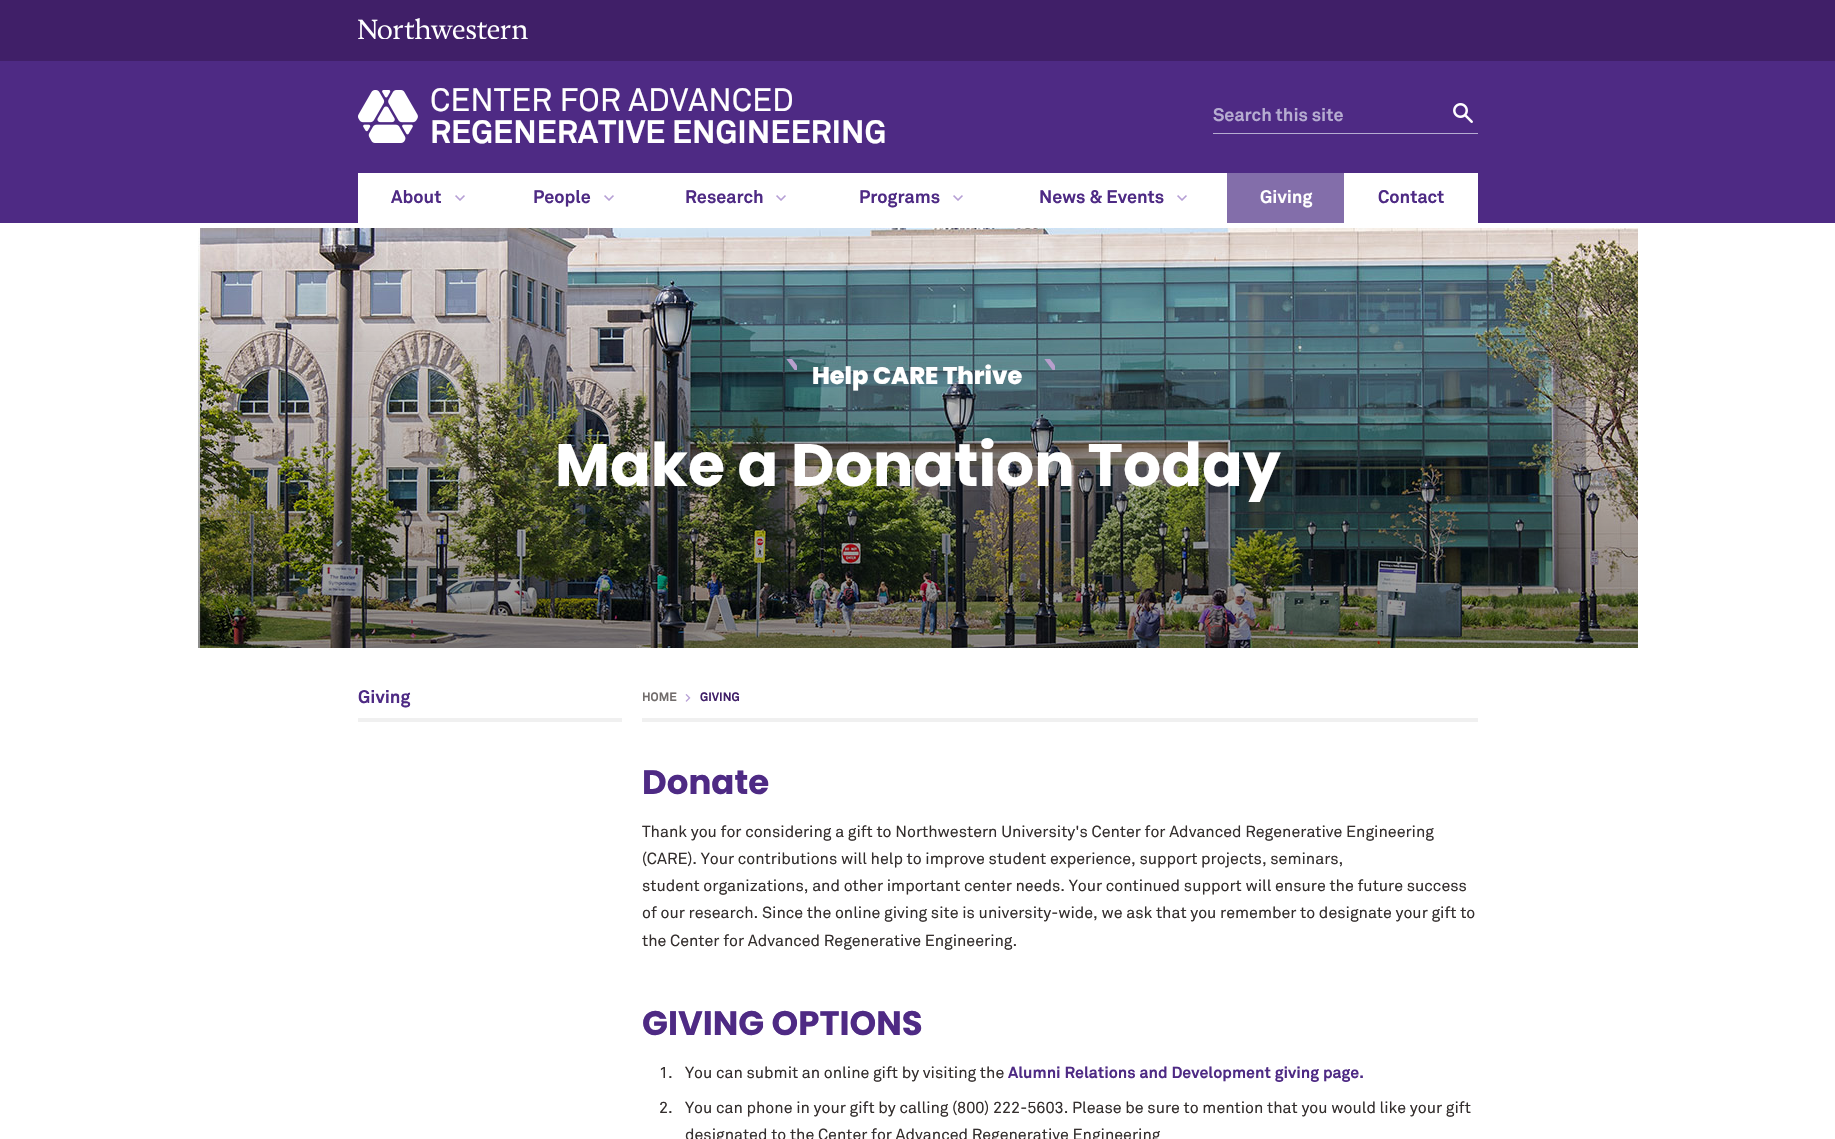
#include "include/core/SkBlurTypes.h"
#include "include/core/SkCanvas.h"
#include "include/core/SkData.h"
#include "include/core/SkFont.h"
#include "include/core/SkFontMgr.h"
#include "include/core/SkImage.h"
#include "include/core/SkMaskFilter.h"
#include "include/core/SkPaint.h"
#include "include/core/SkPathBuilder.h"
#include "include/core/SkTextBlob.h"
#include "include/effects/SkDashPathEffect.h"
#include "include/effects/SkGradientShader.h"
#include "include/utils/SkParsePath.h"

extern sk_sp<SkFontMgr> fontMgr;

void draw(SkCanvas* canvas) {
  SkPaint p;
  p.setAntiAlias(true);
  auto spacedText = [&](const char* s, float x, float y, const SkFont& font, const SkPaint& ink, float letter, float word) {
    std::vector<SkGlyphID> glyphs(font.countText(s, strlen(s), SkTextEncoding::kUTF8));
    std::vector<float> xs(glyphs.size());
    font.textToGlyphs(s, strlen(s), SkTextEncoding::kUTF8, glyphs);
    font.getXPos(glyphs, xs, x);
    float extra = 0;
    for (size_t i = 0; i < glyphs.size(); i++) {
      xs[i] += extra;
      extra += letter + word * (glyphs[i] == font.unicharToGlyph(' '));
    }
    canvas->drawTextBlob(SkTextBlob::MakeFromPosHGlyphs(glyphs, xs, y, font), 0, 0, ink);
  };
  canvas->clear(SK_ColorWHITE);
  p.setColor(SkColorSetRGB(78, 42, 132));
  canvas->drawRect(SkRect::MakeLTRB(0, 61, 1835, 223), p);
  p.setColor(SkColorSetRGB(64, 31, 104));
  canvas->drawRect(SkRect::MakeLTRB(0, 0, 1835, 61), p);
  canvas->drawImageRect(SkImages::DeferredFromEncodedData(SkData::MakeFromFileName("images/1.png")), SkRect::MakeLTRB(358, 18, 528, 39), SkSamplingOptions());
  canvas->drawImageRect(SkImages::DeferredFromEncodedData(SkData::MakeFromFileName("images/2.png")), SkRect::MakeLTRB(358, 90, 418, 143), SkSamplingOptions());
  p.setColor(SkColorSetRGB(182, 172, 209));
  canvas->drawRect(SkRect::MakeLTRB(1213, 133, 1478, 134), p);
  canvas->drawImageRect(SkImages::DeferredFromEncodedData(SkData::MakeFromFileName("images/3.png")), SkRect::MakeLTRB(1453, 103, 1473, 123), SkSamplingOptions());
  p.setColor(SK_ColorWHITE);
  canvas->drawRect(SkRect::MakeLTRB(358, 173, 1478, 223), p);
  canvas->drawImageRect(SkImages::DeferredFromEncodedData(SkData::MakeFromFileName("images/4.png")), SkRect::MakeLTRB(455, 195, 465, 201), SkSamplingOptions());
  canvas->drawImageRect(SkImages::DeferredFromEncodedData(SkData::MakeFromFileName("images/4.png")), SkRect::MakeLTRB(604, 195, 614, 201), SkSamplingOptions());
  canvas->drawImageRect(SkImages::DeferredFromEncodedData(SkData::MakeFromFileName("images/4.png")), SkRect::MakeLTRB(776, 195, 786, 201), SkSamplingOptions());
  canvas->drawImageRect(SkImages::DeferredFromEncodedData(SkData::MakeFromFileName("images/4.png")), SkRect::MakeLTRB(953, 195, 963, 201), SkSamplingOptions());
  canvas->drawImageRect(SkImages::DeferredFromEncodedData(SkData::MakeFromFileName("images/4.png")), SkRect::MakeLTRB(1177, 195, 1187, 201), SkSamplingOptions());
  p.setColor(SkColorSetRGB(131, 110, 170));
  canvas->drawRect(SkRect::MakeLTRB(1227, 173, 1344, 223), p);
  canvas->drawImageRect(SkImages::DeferredFromEncodedData(SkData::MakeFromFileName("images/5.png")), SkRect::MakeLTRB(198, 228, 1638, 648), SkSamplingOptions());
  canvas->save();
  canvas->clipRect(SkRect::MakeLTRB(780, 359, 797, 370));
  p.setColor(SkColorSetRGB(183, 159, 204));
  canvas->drawPath(SkPathBuilder().moveTo(780, 349).lineTo(780, 350.5f).lineTo(794.5f, 370).lineTo(797, 370).lineTo(797, 365.5f).lineTo(784.5f, 349).close().detach(), p);
  canvas->restore();
  canvas->save();
  canvas->clipRect(SkRect::MakeLTRB(1038, 359, 1055, 370));
  canvas->drawPath(SkPathBuilder().moveTo(1038, 349).lineTo(1038, 350.5f).lineTo(1052.5f, 370).lineTo(1055, 370).lineTo(1055, 365.5f).lineTo(1042.5f, 349).close().detach(), p);
  canvas->restore();
  p.setColor(SkColorSetRGB(240, 240, 240));
  canvas->drawRect(SkRect::MakeLTRB(358, 718, 622, 722), p);
  canvas->drawRect(SkRect::MakeLTRB(642, 718, 1478, 722), p);
  canvas->drawImageRect(SkImages::DeferredFromEncodedData(SkData::MakeFromFileName("images/6.png")), SkRect::MakeLTRB(685, 694, 691, 702), SkSamplingOptions());
  SkFont font1(fontMgr->matchFamilyStyle("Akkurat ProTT", SkFontStyle::Normal()), 32);
  font1.setSubpixel(true);
  p.setColor(SK_ColorWHITE);
  canvas->drawString("CENTER FOR ADVANCED", 430, 111, font1, p);
  SkFont font2(fontMgr->matchFamilyStyle("Akkurat ProTT", SkFontStyle::Bold()), 32);
  font2.setSubpixel(true);
  canvas->drawString("REGENERATIVE ENGINEERING", 430, 143, font2, p);
  SkFont font3(fontMgr->matchFamilyStyle("Akkurat ProTT", SkFontStyle::Bold()), 18);
  font3.setSubpixel(true);
  p.setColor(SkColorSetRGB(182, 172, 209));
  canvas->drawString("Search this site", 1213, 121, font3, p);
  p.setColor(SkColorSetRGB(78, 42, 132));
  canvas->drawString("About", 391, 203, font3, p);
  canvas->drawString("People", 533, 203, font3, p);
  canvas->drawString("Research", 685, 203, font3, p);
  canvas->drawString("Programs", 859, 203, font3, p);
  canvas->drawString("News & Events", 1039, 203, font3, p);
  p.setColor(SK_ColorWHITE);
  canvas->drawString("Giving", 1260, 203, font3, p);
  p.setColor(SkColorSetRGB(78, 42, 132));
  canvas->drawString("Contact", 1378, 203, font3, p);
  SkFont font4(fontMgr->matchFamilyStyle("Poppins", SkFontStyle(800, SkFontStyle::kNormal_Width, SkFontStyle::kUpright_Slant)), 24);
  font4.setSubpixel(true);
  p.setColor(SK_ColorWHITE);
  canvas->drawString("Help CARE Thrive", 812, 384, font4, p);
  SkFont font5(fontMgr->matchFamilyStyle("Poppins", SkFontStyle::Bold()), 60);
  font5.setSubpixel(true);
  canvas->drawString("Make a Donation Today", 555, 486, font5, p);
  p.setColor(SkColorSetRGB(78, 42, 132));
  canvas->drawString("Giving", 358, 703, font3, p);
  SkFont font6(fontMgr->matchFamilyStyle("Akkurat ProTT", SkFontStyle::Bold()), 12);
  font6.setSubpixel(true);
  p.setColor(SkColorSetRGB(113, 108, 107));
  canvas->drawString("HOME", 642, 701, font6, p);
  p.setColor(SkColorSetRGB(64, 31, 104));
  canvas->drawString("GIVING", 700, 701, font6, p);
  SkFont font7(fontMgr->matchFamilyStyle("Poppins", SkFontStyle::Bold()), 34);
  font7.setSubpixel(true);
  p.setColor(SkColorSetRGB(78, 42, 132));
  canvas->drawString("Donate", 642, 794, font7, p);
  SkFont font8(fontMgr->matchFamilyStyle("Akkurat ProTT", SkFontStyle::Normal()), 16);
  font8.setSubpixel(true);
  p.setColor(SkColorSetRGB(52, 47, 46));
  canvas->drawString("Thank you for considering a gift to Northwestern University's Center for Advanced Regenerative Engineering", 642, 837, font8, p);
  canvas->drawString("(CARE). Your contributions will help to improve student experience, support projects, seminars,", 642, 864, font8, p);
  canvas->drawString("student organizations, and other important center needs. Your continued support will ensure the future success", 642, 891, font8, p);
  canvas->drawString("of our research. Since the online giving site is university-wide, we ask that you remember to designate your gift to", 642, 918, font8, p);
  canvas->drawString("the Center for Advanced Regenerative Engineering.", 642, 946, font8, p);
  p.setColor(SkColorSetRGB(78, 42, 132));
  canvas->drawString("GIVING OPTIONS", 642, 1035, font7, p);
  p.setColor(SkColorSetRGB(52, 47, 46));
  canvas->drawString("1.", 659, 1078, font8, p);
  canvas->drawString("You can submit an online gift by visiting the", 685, 1078, font8, p);
  SkFont font9(fontMgr->matchFamilyStyle("Akkurat ProTT", SkFontStyle::Bold()), 16);
  font9.setSubpixel(true);
  p.setColor(SkColorSetRGB(78, 42, 132));
  spacedText("Alumni Relations and Development giving page.", 1008, 1078, font9, p, 0, 0.5f);
  p.setColor(SkColorSetRGB(52, 47, 46));
  canvas->drawString("2.", 659, 1113, font8, p);
  canvas->drawString("You can phone in your gift by calling (800) 222-5603. Please be sure to mention that you would like your gift", 685, 1113, font8, p);
  canvas->drawString("designated to the Center for Advanced Regenerative Engineering", 685, 1140, font8, p);
}
